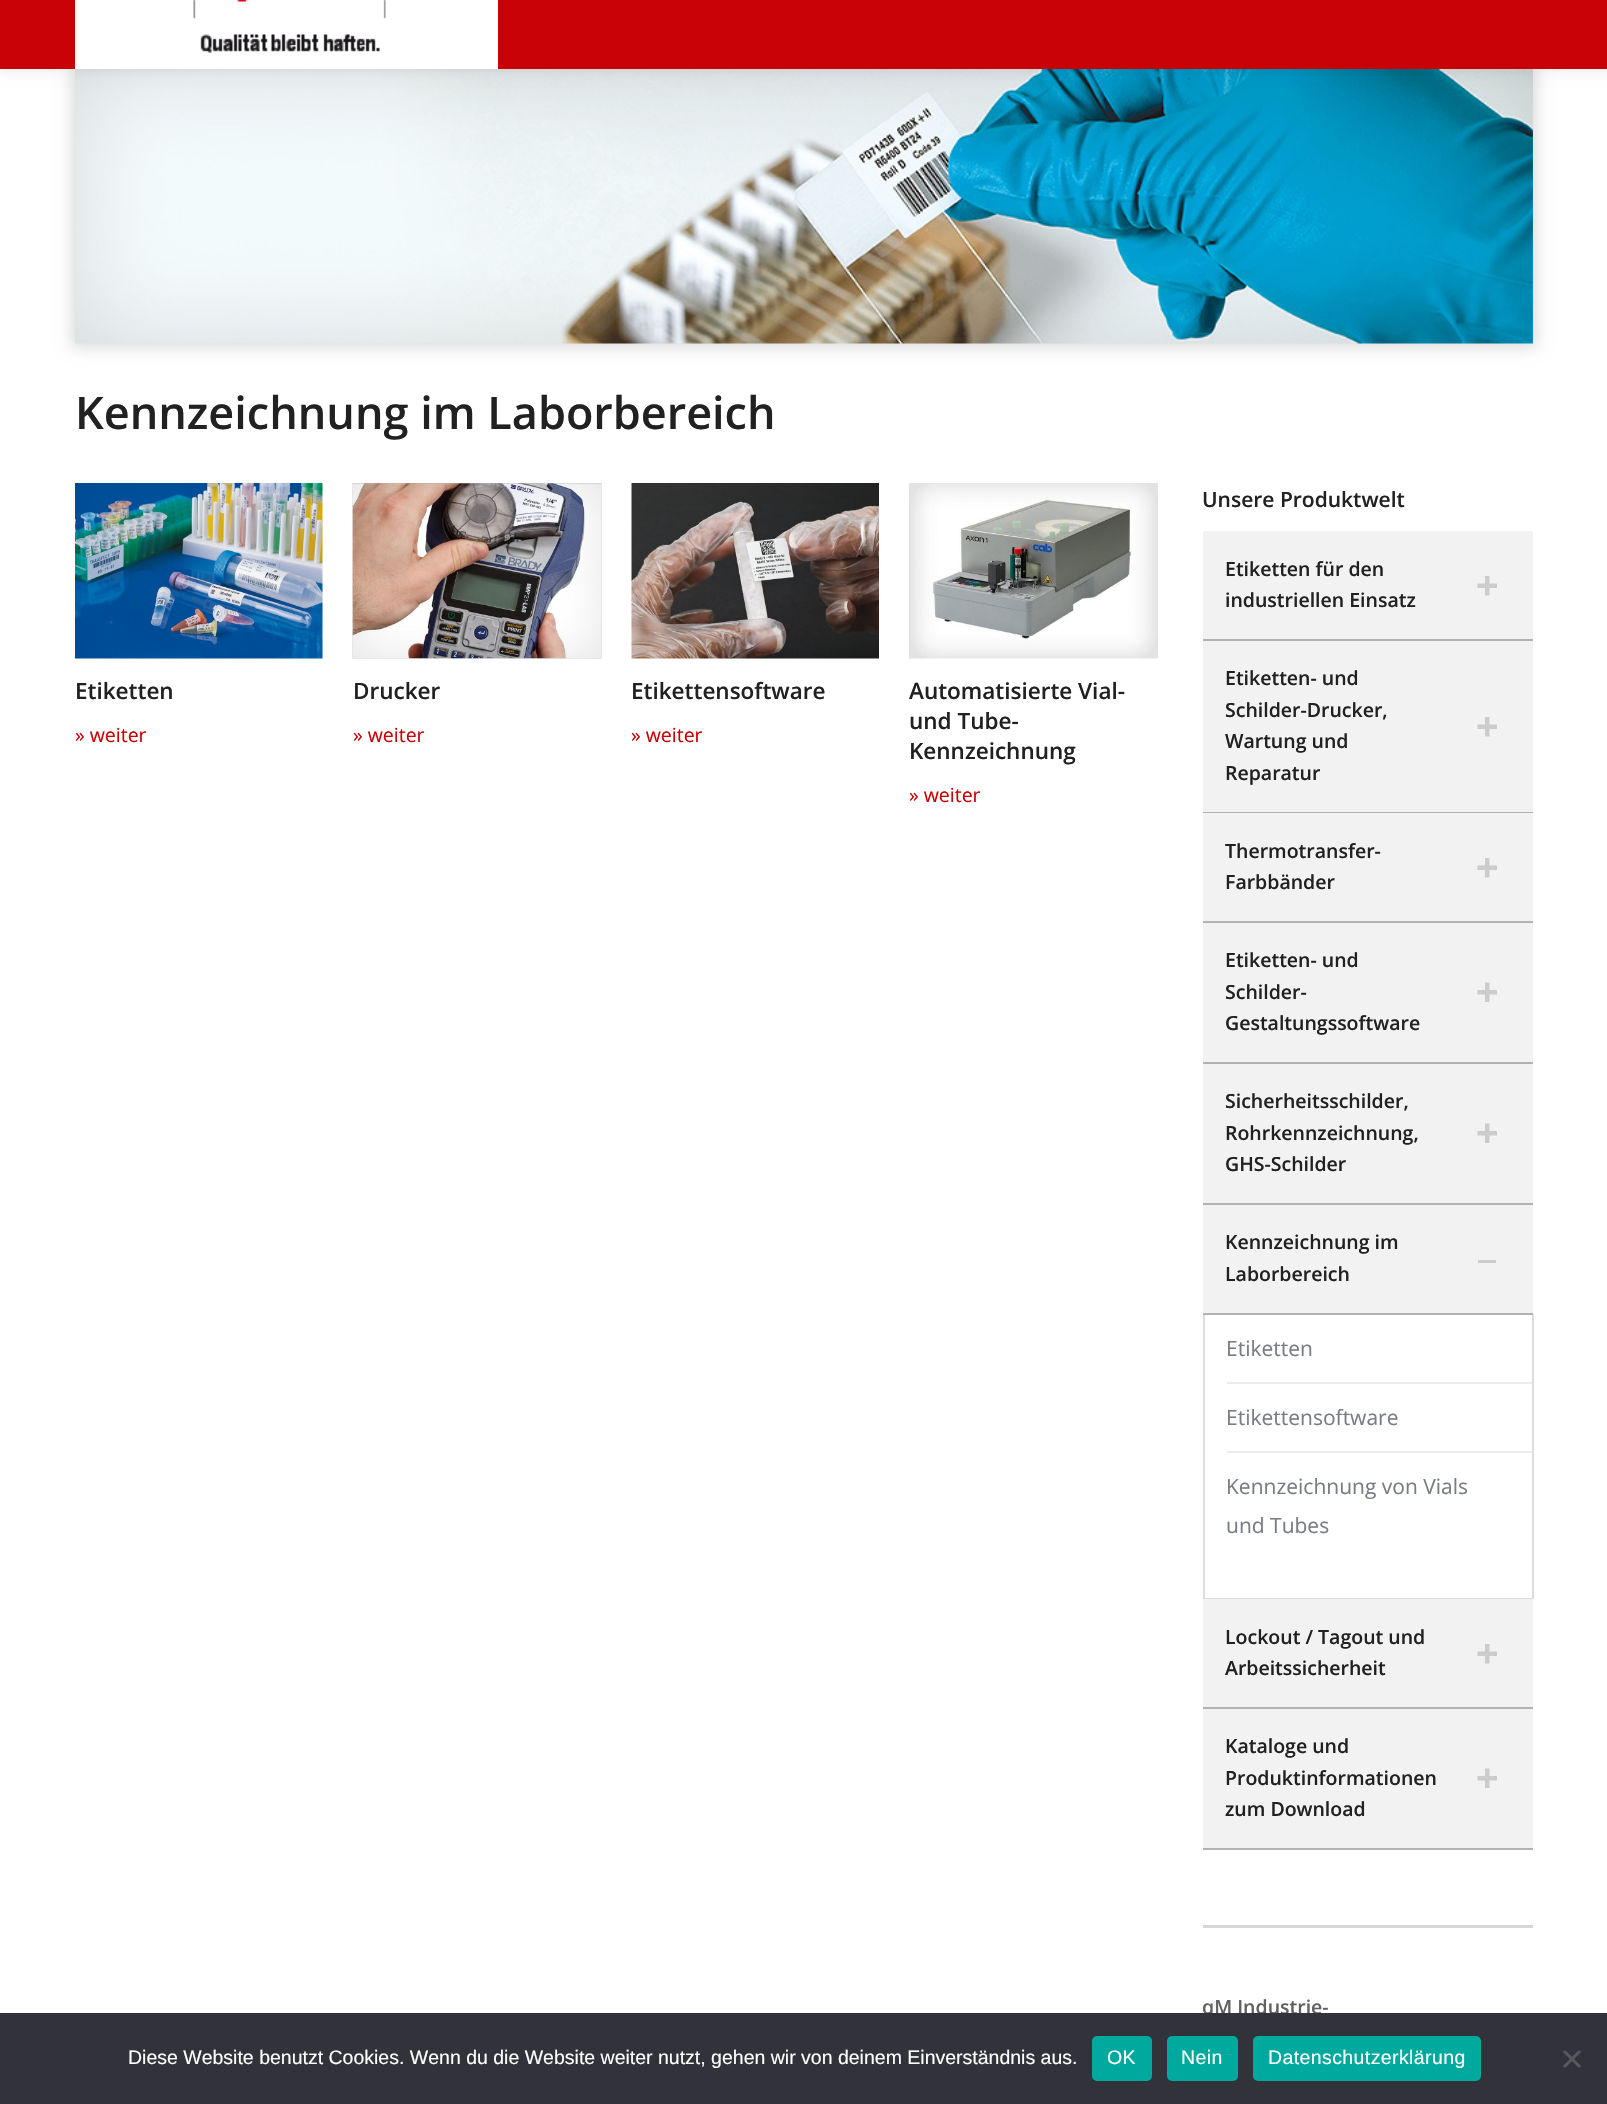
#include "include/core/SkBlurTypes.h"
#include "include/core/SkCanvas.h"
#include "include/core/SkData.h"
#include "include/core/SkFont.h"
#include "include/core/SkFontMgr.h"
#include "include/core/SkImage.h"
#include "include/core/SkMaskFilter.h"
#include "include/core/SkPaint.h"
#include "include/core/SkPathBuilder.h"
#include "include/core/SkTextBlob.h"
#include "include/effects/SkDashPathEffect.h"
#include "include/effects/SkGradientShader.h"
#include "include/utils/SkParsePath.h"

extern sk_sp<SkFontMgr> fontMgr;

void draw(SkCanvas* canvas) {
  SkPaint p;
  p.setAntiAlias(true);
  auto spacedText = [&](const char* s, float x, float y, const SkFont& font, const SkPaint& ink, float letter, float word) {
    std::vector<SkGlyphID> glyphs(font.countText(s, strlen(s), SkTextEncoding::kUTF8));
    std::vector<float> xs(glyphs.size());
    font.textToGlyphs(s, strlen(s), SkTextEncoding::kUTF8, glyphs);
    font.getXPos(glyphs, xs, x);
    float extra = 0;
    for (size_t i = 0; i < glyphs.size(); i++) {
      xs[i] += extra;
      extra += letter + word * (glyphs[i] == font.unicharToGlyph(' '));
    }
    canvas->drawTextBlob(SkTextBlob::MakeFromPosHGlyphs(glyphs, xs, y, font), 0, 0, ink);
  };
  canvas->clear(SK_ColorWHITE);
  p.setColor(SkColorSetARGB(38, 0, 0, 0));
  p.setMaskFilter(SkMaskFilter::MakeBlur(kNormal_SkBlurStyle, 7.5f));
  canvas->drawRect(SkRect::MakeLTRB(72, 66, 1536, 347), p);
  p.setMaskFilter(nullptr);
  canvas->drawImageRect(SkImages::DeferredFromEncodedData(SkData::MakeFromFileName("images/2.png")), SkRect::MakeLTRB(75, 69, 1533, 344), SkSamplingOptions());
  p.setMaskFilter(SkMaskFilter::MakeBlur(kNormal_SkBlurStyle, 7.5f));
  canvas->drawRect(SkRect::MakeLTRB(-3, -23, 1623, 66), p);
  p.setMaskFilter(nullptr);
  p.setColor(SkColorSetRGB(201, 2, 6));
  canvas->drawRect(SkRect::MakeLTRB(0, 0, 1607, 69), p);
  canvas->drawImageRect(SkImages::DeferredFromEncodedData(SkData::MakeFromFileName("images/1.png")), SkRect::MakeLTRB(75, 0, 498, 69), SkSamplingOptions());
  canvas->drawImageRect(SkImages::DeferredFromEncodedData(SkData::MakeFromFileName("images/3.png")), SkRect::MakeLTRB(75, 483, 323, 659), SkSamplingOptions());
  canvas->drawImageRect(SkImages::DeferredFromEncodedData(SkData::MakeFromFileName("images/4.png")), SkRect::MakeLTRB(352, 483, 602, 659), SkSamplingOptions());
  canvas->drawImageRect(SkImages::DeferredFromEncodedData(SkData::MakeFromFileName("images/5.png")), SkRect::MakeLTRB(631, 483, 879, 659), SkSamplingOptions());
  canvas->drawImageRect(SkImages::DeferredFromEncodedData(SkData::MakeFromFileName("images/6.png")), SkRect::MakeLTRB(909, 483, 1158, 659), SkSamplingOptions());
  p.setColor(SkColorSetRGB(242, 242, 242));
  canvas->drawRect(SkRect::MakeLTRB(1203, 531, 1533, 639), p);
  p.setColor(SkColorSetRGB(178, 178, 178));
  canvas->drawRect(SkRect::MakeLTRB(1203, 639, 1533, 641), p);
  canvas->drawImageRect(SkImages::DeferredFromEncodedData(SkData::MakeFromFileName("images/7.png")), SkRect::MakeLTRB(1477, 576, 1497, 596), SkSamplingOptions());
  p.setColor(SkColorSetRGB(242, 242, 242));
  canvas->drawRect(SkRect::MakeLTRB(1203, 641, 1533, 812), p);
  p.setColor(SkColorSetRGB(178, 178, 178));
  canvas->drawRect(SkRect::MakeLTRB(1203, 812, 1533, 813), p);
  canvas->drawImageRect(SkImages::DeferredFromEncodedData(SkData::MakeFromFileName("images/7.png")), SkRect::MakeLTRB(1477, 717, 1497, 737), SkSamplingOptions());
  p.setColor(SkColorSetRGB(242, 242, 242));
  canvas->drawRect(SkRect::MakeLTRB(1203, 813, 1533, 921), p);
  p.setColor(SkColorSetRGB(178, 178, 178));
  canvas->drawRect(SkRect::MakeLTRB(1203, 921, 1533, 923), p);
  canvas->drawImageRect(SkImages::DeferredFromEncodedData(SkData::MakeFromFileName("images/7.png")), SkRect::MakeLTRB(1477, 858, 1497, 878), SkSamplingOptions());
  p.setColor(SkColorSetRGB(242, 242, 242));
  canvas->drawRect(SkRect::MakeLTRB(1203, 923, 1533, 1062), p);
  p.setColor(SkColorSetRGB(178, 178, 178));
  canvas->drawRect(SkRect::MakeLTRB(1203, 1062, 1533, 1064), p);
  canvas->drawImageRect(SkImages::DeferredFromEncodedData(SkData::MakeFromFileName("images/8.png")), SkRect::MakeLTRB(1477, 982, 1497, 1002), SkSamplingOptions());
  p.setColor(SkColorSetRGB(242, 242, 242));
  canvas->drawRect(SkRect::MakeLTRB(1203, 1064, 1533, 1203), p);
  p.setColor(SkColorSetRGB(178, 178, 178));
  canvas->drawRect(SkRect::MakeLTRB(1203, 1203, 1533, 1205), p);
  canvas->drawImageRect(SkImages::DeferredFromEncodedData(SkData::MakeFromFileName("images/8.png")), SkRect::MakeLTRB(1477, 1123, 1497, 1143), SkSamplingOptions());
  p.setColor(SkColorSetRGB(242, 242, 242));
  canvas->drawRect(SkRect::MakeLTRB(1203, 1205, 1533, 1313), p);
  p.setColor(SkColorSetRGB(221, 221, 221));
  canvas->drawRect(SkRect::MakeLTRB(1532, 1314, 1534, 1599), p);
  canvas->drawRect(SkRect::MakeLTRB(1203, 1598, 1533, 1599), p);
  canvas->drawRect(SkRect::MakeLTRB(1203, 1314, 1205, 1599), p);
  p.setColor(SkColorSetRGB(178, 178, 178));
  canvas->drawRect(SkRect::MakeLTRB(1203, 1313, 1533, 1315), p);
  p.setColor(SkColorSetRGB(204, 204, 204));
  canvas->drawRect(SkRect::MakeLTRB(1478, 1260, 1496, 1263), p);
  p.setColor(SkColorSetRGB(235, 236, 237));
  canvas->drawRect(SkRect::MakeLTRB(1227, 1382, 1532, 1384), p);
  canvas->drawRect(SkRect::MakeLTRB(1227, 1451, 1532, 1453), p);
  p.setColor(SkColorSetRGB(242, 242, 242));
  canvas->drawRect(SkRect::MakeLTRB(1203, 1599, 1533, 1707), p);
  p.setColor(SkColorSetRGB(178, 178, 178));
  canvas->drawRect(SkRect::MakeLTRB(1203, 1707, 1533, 1709), p);
  canvas->drawImageRect(SkImages::DeferredFromEncodedData(SkData::MakeFromFileName("images/7.png")), SkRect::MakeLTRB(1477, 1644, 1497, 1664), SkSamplingOptions());
  p.setColor(SkColorSetRGB(242, 242, 242));
  canvas->drawRect(SkRect::MakeLTRB(1203, 1709, 1533, 1848), p);
  p.setColor(SkColorSetRGB(178, 178, 178));
  canvas->drawRect(SkRect::MakeLTRB(1203, 1848, 1533, 1850), p);
  canvas->drawImageRect(SkImages::DeferredFromEncodedData(SkData::MakeFromFileName("images/8.png")), SkRect::MakeLTRB(1477, 1768, 1497, 1788), SkSamplingOptions());
  p.setColor(SkColorSetRGB(215, 215, 215));
  canvas->drawRect(SkRect::MakeLTRB(1203, 1925, 1533, 1928), p);
  SkFont font1(fontMgr->matchFamilyStyle("Open Sans", SkFontStyle(600, SkFontStyle::kNormal_Width, SkFontStyle::kUpright_Slant)), 45);
  font1.setSubpixel(true);
  p.setColor(SkColorSetRGB(33, 33, 33));
  canvas->drawString("Kennzeichnung im Laborbereich", 75, 429, font1, p);
  SkFont font2(fontMgr->matchFamilyStyle("Open Sans", SkFontStyle(600, SkFontStyle::kNormal_Width, SkFontStyle::kUpright_Slant)), 22.5f);
  font2.setSubpixel(true);
  canvas->drawString("Etiketten", 75, 699, font2, p);
  SkFont font3(fontMgr->matchFamilyStyle("Open Sans", SkFontStyle::Normal()), 19.5f);
  font3.setSubpixel(true);
  p.setColor(SkColorSetRGB(201, 2, 6));
  canvas->drawString("» weiter", 75, 742, font3, p);
  p.setColor(SkColorSetRGB(33, 33, 33));
  canvas->drawString("Drucker", 353, 699, font2, p);
  p.setColor(SkColorSetRGB(201, 2, 6));
  canvas->drawString("» weiter", 353, 742, font3, p);
  p.setColor(SkColorSetRGB(33, 33, 33));
  canvas->drawString("Etikettensoftware", 631, 699, font2, p);
  p.setColor(SkColorSetRGB(201, 2, 6));
  canvas->drawString("» weiter", 631, 742, font3, p);
  p.setColor(SkColorSetRGB(33, 33, 33));
  canvas->drawString("Automatisierte Vial-", 909, 699, font2, p);
  canvas->drawString("und Tube-", 909, 729, font2, p);
  canvas->drawString("Kennzeichnung", 909, 759, font2, p);
  p.setColor(SkColorSetRGB(201, 2, 6));
  canvas->drawString("» weiter", 909, 802, font3, p);
  SkFont font4(fontMgr->matchFamilyStyle("Open Sans", SkFontStyle(600, SkFontStyle::kNormal_Width, SkFontStyle::kUpright_Slant)), 21);
  font4.setSubpixel(true);
  p.setColor(SkColorSetRGB(33, 33, 33));
  canvas->drawString("Unsere Produktwelt", 1202, 507, font4, p);
  SkFont font5(fontMgr->matchFamilyStyle("Open Sans", SkFontStyle(600, SkFontStyle::kNormal_Width, SkFontStyle::kUpright_Slant)), 19.5f);
  font5.setSubpixel(true);
  canvas->drawString("Etiketten für den", 1225, 576, font5, p);
  canvas->drawString("industriellen Einsatz", 1225, 607, font5, p);
  canvas->drawString("Etiketten- und", 1225, 685, font5, p);
  canvas->drawString("Schilder-Drucker,", 1225, 717, font5, p);
  canvas->drawString("Wartung und", 1225, 748, font5, p);
  canvas->drawString("Reparatur", 1225, 780, font5, p);
  canvas->drawString("Thermotransfer-", 1225, 858, font5, p);
  canvas->drawString("Farbbänder", 1225, 889, font5, p);
  canvas->drawString("Etiketten- und", 1225, 967, font5, p);
  canvas->drawString("Schilder-", 1225, 999, font5, p);
  canvas->drawString("Gestaltungssoftware", 1225, 1030, font5, p);
  canvas->drawString("Sicherheitsschilder,", 1225, 1108, font5, p);
  canvas->drawString("Rohrkennzeichnung,", 1225, 1140, font5, p);
  canvas->drawString("GHS-Schilder", 1225, 1171, font5, p);
  canvas->drawString("Kennzeichnung im", 1225, 1249, font5, p);
  canvas->drawString("Laborbereich", 1225, 1281, font5, p);
  SkFont font6(fontMgr->matchFamilyStyle("Open Sans", SkFontStyle::Normal()), 21);
  font6.setSubpixel(true);
  p.setColor(SkColorSetRGB(120, 125, 133));
  canvas->drawString("Etiketten", 1226, 1356, font6, p);
  canvas->drawString("Etikettensoftware", 1226, 1425, font6, p);
  canvas->drawString("Kennzeichnung von Vials", 1226, 1494, font6, p);
  canvas->drawString("und Tubes", 1226, 1533, font6, p);
  p.setColor(SkColorSetRGB(33, 33, 33));
  canvas->drawString("Lockout / Tagout und", 1225, 1644, font5, p);
  canvas->drawString("Arbeitssicherheit", 1225, 1675, font5, p);
  canvas->drawString("Kataloge und", 1225, 1753, font5, p);
  canvas->drawString("Produktinformationen", 1225, 1785, font5, p);
  canvas->drawString("zum Download", 1225, 1816, font5, p);
  p.setColor(SkColorSetRGB(96, 96, 96));
  canvas->drawString("qM Industrie-", 1202, 2014, font5, p);
  p.setColor(SkColorSetRGB(50, 50, 58));
  canvas->drawRect(SkRect::MakeLTRB(0, 2013, 1607, 2104), p);
  SkFont font7(fontMgr->matchFamilyStyle("Liberation Sans", SkFontStyle::Normal()), 19.5f);
  font7.setSubpixel(true);
  p.setColor(SK_ColorWHITE);
  canvas->drawString("Diese Website benutzt Cookies. Wenn du die Website weiter nutzt, gehen wir von deinem Einverständnis aus.", 128, 2064, font7, p);
  p.setColor(SkColorSetRGB(0, 169, 157));
  canvas->drawRoundRect(SkRect::MakeLTRB(1092, 2036, 1152, 2081), 5, 5, p);
  p.setColor(SK_ColorWHITE);
  spacedText("OK", 1107, 2064, font7, p, 0.4f, 0);
  p.setColor(SkColorSetRGB(0, 169, 157));
  canvas->drawRoundRect(SkRect::MakeLTRB(1167, 2036, 1238, 2081), 5, 5, p);
  p.setColor(SK_ColorWHITE);
  spacedText("Nein", 1181, 2064, font7, p, 0.4f, 0);
  p.setColor(SkColorSetRGB(0, 169, 157));
  canvas->drawRoundRect(SkRect::MakeLTRB(1253, 2036, 1481, 2081), 5, 5, p);
  p.setColor(SK_ColorWHITE);
  spacedText("Datenschutzerklärung", 1268, 2064, font7, p, 0.4f, 0);
  p.setColor(SkColorSetRGB(89, 89, 93));
  canvas->drawPath(SkPathBuilder().moveTo(1579, 2050).lineTo(1581, 2052).lineTo(1565, 2068).lineTo(1563, 2066).close().detach(), p);
  canvas->drawPath(SkPathBuilder().moveTo(1563, 2052).lineTo(1565, 2050).lineTo(1581, 2066).lineTo(1579, 2068).close().detach(), p);
}
